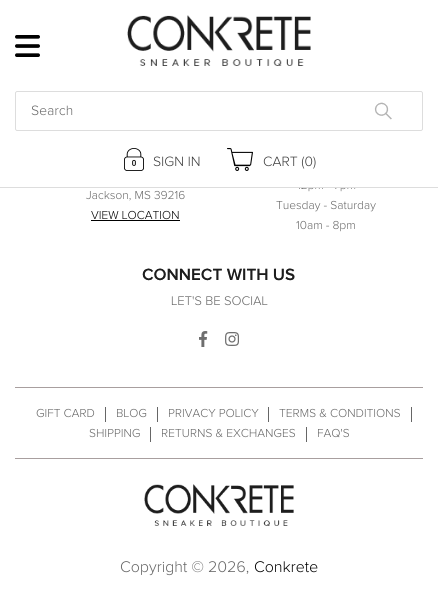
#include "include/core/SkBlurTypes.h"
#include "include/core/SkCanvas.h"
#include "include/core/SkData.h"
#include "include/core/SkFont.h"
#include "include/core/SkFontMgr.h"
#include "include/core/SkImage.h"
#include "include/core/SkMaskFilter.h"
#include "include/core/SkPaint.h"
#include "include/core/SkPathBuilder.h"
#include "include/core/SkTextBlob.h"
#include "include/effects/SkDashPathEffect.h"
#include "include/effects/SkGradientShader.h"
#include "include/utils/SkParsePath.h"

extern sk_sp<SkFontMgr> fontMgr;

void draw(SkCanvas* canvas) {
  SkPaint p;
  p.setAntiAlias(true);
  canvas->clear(SK_ColorWHITE);
  p.setColor(SkColorSetRGB(221, 221, 221));
  canvas->drawRect(SkRect::MakeLTRB(0, 187, 438, 188), p);
  canvas->drawImageRect(SkImages::DeferredFromEncodedData(SkData::MakeFromFileName("images/1.png")), SkRect::MakeLTRB(15, 35, 40, 57), SkSamplingOptions());
  canvas->drawImageRect(SkImages::DeferredFromEncodedData(SkData::MakeFromFileName("images/2.png")), SkRect::MakeLTRB(127, 15, 311, 66), SkSamplingOptions());
  p.setStyle(SkPaint::kStroke_Style);
  p.setStrokeWidth(1);
  canvas->drawRoundRect(SkRect::MakeLTRB(15.5f, 91.5f, 422.5f, 130.5f), 1.5f, 1.5f, p);
  canvas->drawImageRect(SkImages::DeferredFromEncodedData(SkData::MakeFromFileName("images/3.png")), SkRect::MakeLTRB(31, 105, 73, 116), SkSamplingOptions());
  canvas->drawImageRect(SkImages::DeferredFromEncodedData(SkData::MakeFromFileName("images/4.png")), SkRect::MakeLTRB(374, 102, 392, 120), SkSamplingOptions());
  canvas->drawImageRect(SkImages::DeferredFromEncodedData(SkData::MakeFromFileName("images/5.png")), SkRect::MakeLTRB(124, 148, 144, 171), SkSamplingOptions());
  canvas->drawImageRect(SkImages::DeferredFromEncodedData(SkData::MakeFromFileName("images/6.png")), SkRect::MakeLTRB(153, 156, 200, 167), SkSamplingOptions());
  canvas->drawImageRect(SkImages::DeferredFromEncodedData(SkData::MakeFromFileName("images/7.png")), SkRect::MakeLTRB(227, 148, 253, 171), SkSamplingOptions());
  canvas->drawImageRect(SkImages::DeferredFromEncodedData(SkData::MakeFromFileName("images/8.png")), SkRect::MakeLTRB(263, 156, 316, 169), SkSamplingOptions());
  canvas->drawImageRect(SkImages::DeferredFromEncodedData(SkData::MakeFromFileName("images/9.png")), SkRect::MakeLTRB(86, 190, 185, 201), SkSamplingOptions());
  canvas->drawImageRect(SkImages::DeferredFromEncodedData(SkData::MakeFromFileName("images/10.png")), SkRect::MakeLTRB(91, 210, 179, 220), SkSamplingOptions());
  p.setStyle(SkPaint::kFill_Style);
  p.setColor(SK_ColorBLACK);
  canvas->drawRect(SkRect::MakeLTRB(91, 220, 180, 221), p);
  canvas->drawImageRect(SkImages::DeferredFromEncodedData(SkData::MakeFromFileName("images/11.png")), SkRect::MakeLTRB(299, 188, 356, 192), SkSamplingOptions());
  canvas->drawImageRect(SkImages::DeferredFromEncodedData(SkData::MakeFromFileName("images/12.png")), SkRect::MakeLTRB(276, 200, 376, 212), SkSamplingOptions());
  canvas->drawImageRect(SkImages::DeferredFromEncodedData(SkData::MakeFromFileName("images/13.png")), SkRect::MakeLTRB(296, 220, 355, 232), SkSamplingOptions());
  canvas->drawImageRect(SkImages::DeferredFromEncodedData(SkData::MakeFromFileName("images/14.png")), SkRect::MakeLTRB(171, 296, 268, 306), SkSamplingOptions());
  canvas->drawImageRect(SkImages::DeferredFromEncodedData(SkData::MakeFromFileName("images/15.png")), SkRect::MakeLTRB(199, 331, 208, 347), SkSamplingOptions());
  canvas->drawImageRect(SkImages::DeferredFromEncodedData(SkData::MakeFromFileName("images/16.png")), SkRect::MakeLTRB(225, 332, 239, 346), SkSamplingOptions());
  p.setColor(SkColorSetRGB(168, 159, 159));
  canvas->drawRect(SkRect::MakeLTRB(15, 387, 423, 388), p);
  canvas->drawRect(SkRect::MakeLTRB(15, 458, 423, 459), p);
  p.setColor(SkColorSetRGB(102, 102, 102));
  canvas->drawRect(SkRect::MakeLTRB(105, 407, 106, 422), p);
  canvas->drawImageRect(SkImages::DeferredFromEncodedData(SkData::MakeFromFileName("images/17.png")), SkRect::MakeLTRB(36, 408, 95, 418), SkSamplingOptions());
  canvas->drawRect(SkRect::MakeLTRB(157, 407, 158, 422), p);
  canvas->drawImageRect(SkImages::DeferredFromEncodedData(SkData::MakeFromFileName("images/18.png")), SkRect::MakeLTRB(117, 408, 147, 418), SkSamplingOptions());
  canvas->drawRect(SkRect::MakeLTRB(268, 407, 269, 422), p);
  canvas->drawImageRect(SkImages::DeferredFromEncodedData(SkData::MakeFromFileName("images/19.png")), SkRect::MakeLTRB(169, 408, 259, 418), SkSamplingOptions());
  canvas->drawRect(SkRect::MakeLTRB(411, 407, 412, 422), p);
  canvas->drawImageRect(SkImages::DeferredFromEncodedData(SkData::MakeFromFileName("images/20.png")), SkRect::MakeLTRB(279, 408, 400, 418), SkSamplingOptions());
  canvas->drawRect(SkRect::MakeLTRB(150, 427, 151, 442), p);
  canvas->drawImageRect(SkImages::DeferredFromEncodedData(SkData::MakeFromFileName("images/21.png")), SkRect::MakeLTRB(89, 428, 140, 438), SkSamplingOptions());
  canvas->drawRect(SkRect::MakeLTRB(306, 427, 307, 442), p);
  canvas->drawImageRect(SkImages::DeferredFromEncodedData(SkData::MakeFromFileName("images/22.png")), SkRect::MakeLTRB(162, 428, 295, 438), SkSamplingOptions());
  canvas->drawImageRect(SkImages::DeferredFromEncodedData(SkData::MakeFromFileName("images/23.png")), SkRect::MakeLTRB(318, 428, 349, 438), SkSamplingOptions());
  canvas->drawImageRect(SkImages::DeferredFromEncodedData(SkData::MakeFromFileName("images/24.png")), SkRect::MakeLTRB(144, 484, 294, 526), SkSamplingOptions());
  canvas->drawImageRect(SkImages::DeferredFromEncodedData(SkData::MakeFromFileName("images/25.png")), SkRect::MakeLTRB(120, 561, 249, 576), SkSamplingOptions());
  canvas->drawImageRect(SkImages::DeferredFromEncodedData(SkData::MakeFromFileName("images/26.png")), SkRect::MakeLTRB(254, 561, 318, 573), SkSamplingOptions());
  SkFont font1(fontMgr->matchFamilyStyle("Proxima Nova", SkFontStyle(600, SkFontStyle::kNormal_Width, SkFontStyle::kUpright_Slant)), 17);
  font1.setSubpixel(true);
  p.setColor(SkColorSetRGB(29, 29, 29));
  canvas->drawString("CONNECT WITH US", 142, 280, font1, p);
}
